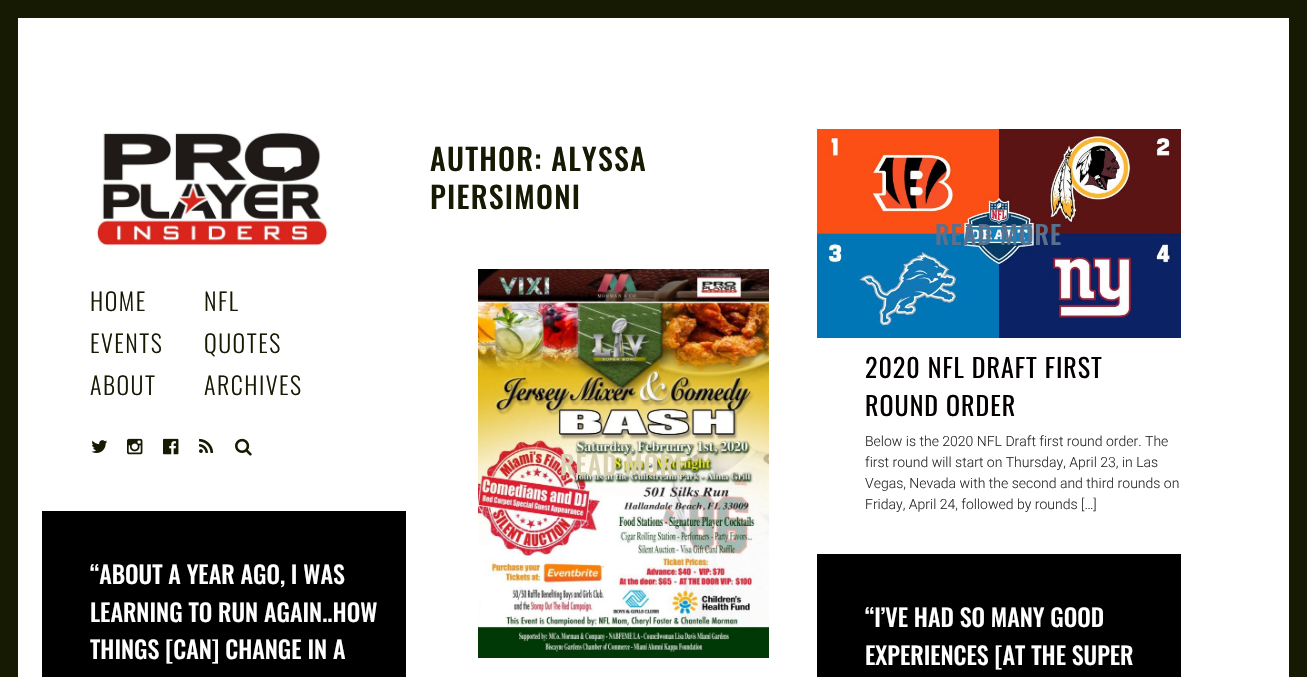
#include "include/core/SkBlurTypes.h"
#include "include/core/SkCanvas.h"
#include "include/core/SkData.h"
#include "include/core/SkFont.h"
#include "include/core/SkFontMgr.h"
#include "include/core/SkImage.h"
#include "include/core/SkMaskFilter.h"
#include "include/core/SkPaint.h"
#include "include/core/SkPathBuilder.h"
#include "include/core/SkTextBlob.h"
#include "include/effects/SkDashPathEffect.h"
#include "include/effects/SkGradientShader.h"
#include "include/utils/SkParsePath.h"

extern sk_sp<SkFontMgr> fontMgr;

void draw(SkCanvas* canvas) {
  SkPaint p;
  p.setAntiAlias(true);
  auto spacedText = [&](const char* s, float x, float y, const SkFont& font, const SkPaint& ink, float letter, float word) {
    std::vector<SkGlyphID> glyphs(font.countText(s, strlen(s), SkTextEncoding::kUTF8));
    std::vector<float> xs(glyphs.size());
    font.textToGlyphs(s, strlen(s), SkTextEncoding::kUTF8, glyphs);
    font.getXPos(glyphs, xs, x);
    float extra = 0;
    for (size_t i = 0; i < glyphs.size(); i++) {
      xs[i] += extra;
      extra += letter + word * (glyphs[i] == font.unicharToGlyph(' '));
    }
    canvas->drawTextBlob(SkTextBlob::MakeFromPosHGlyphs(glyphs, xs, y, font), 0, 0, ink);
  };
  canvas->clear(SK_ColorWHITE);
  p.setColor(SkColorSetRGB(22, 26, 3));
  canvas->drawRect(SkRect::MakeLTRB(18, 0, 1289, 18), p);
  canvas->drawRect(SkRect::MakeLTRB(1289, 0, 1307, 677), p);
  canvas->drawRect(SkRect::MakeLTRB(0, 0, 18, 677), p);
  canvas->drawImageRect(SkImages::DeferredFromEncodedData(SkData::MakeFromFileName("images/1.png")), SkRect::MakeLTRB(96, 132, 328, 246), SkSamplingOptions());
  canvas->drawImageRect(SkImages::DeferredFromEncodedData(SkData::MakeFromFileName("images/2.png")), SkRect::MakeLTRB(91, 440, 108, 453), SkSamplingOptions());
  canvas->drawImageRect(SkImages::DeferredFromEncodedData(SkData::MakeFromFileName("images/3.png")), SkRect::MakeLTRB(127, 438, 143, 455), SkSamplingOptions());
  canvas->drawImageRect(SkImages::DeferredFromEncodedData(SkData::MakeFromFileName("images/4.png")), SkRect::MakeLTRB(163, 438, 179, 455), SkSamplingOptions());
  canvas->drawImageRect(SkImages::DeferredFromEncodedData(SkData::MakeFromFileName("images/5.png")), SkRect::MakeLTRB(199, 438, 214, 453), SkSamplingOptions());
  canvas->drawImageRect(SkImages::DeferredFromEncodedData(SkData::MakeFromFileName("images/6.png")), SkRect::MakeLTRB(235, 438, 252, 456), SkSamplingOptions());
  canvas->drawImageRect(SkImages::DeferredFromEncodedData(SkData::MakeFromFileName("images/7.png")), SkRect::MakeLTRB(817, 129, 1181, 338), SkSamplingOptions());
  canvas->drawImageRect(SkImages::DeferredFromEncodedData(SkData::MakeFromFileName("images/8.png")), SkRect::MakeLTRB(478, 269, 769, 658), SkSamplingOptions());
  p.setColor(SK_ColorBLACK);
  canvas->drawRect(SkRect::MakeLTRB(42, 511, 406, 677), p);
  canvas->drawRect(SkRect::MakeLTRB(817, 554, 1181, 677), p);
  SkFont font1(fontMgr->matchFamilyStyle("Oswald", SkFontStyle(500, SkFontStyle::kNormal_Width, SkFontStyle::kUpright_Slant)), 30);
  font1.setSubpixel(true);
  p.setColor(SkColorSetRGB(22, 26, 3));
  spacedText("AUTHOR: ALYSSA", 430, 171, font1, p, 1.25f, 0);
  spacedText("PIERSIMONI", 430, 209, font1, p, 1.25f, 0);
  SkFont font2(fontMgr->matchFamilyStyle("Oswald", SkFontStyle(300, SkFontStyle::kNormal_Width, SkFontStyle::kUpright_Slant)), 24);
  font2.setSubpixel(true);
  spacedText("HOME", 90, 311, font2, p, 1.5f, 0);
  spacedText("NFL", 204, 311, font2, p, 1.5f, 0);
  spacedText("EVENTS", 90, 353, font2, p, 1.5f, 0);
  spacedText("QUOTES", 204, 353, font2, p, 1.5f, 0);
  spacedText("ABOUT", 90, 395, font2, p, 1.5f, 0);
  spacedText("ARCHIVES", 204, 395, font2, p, 1.5f, 0);
  SkFont font3(fontMgr->matchFamilyStyle("Oswald", SkFontStyle(500, SkFontStyle::kNormal_Width, SkFontStyle::kUpright_Slant)), 26);
  font3.setSubpixel(true);
  p.setColor(SkColorSetRGB(90, 113, 141));
  spacedText("READ MORE", 935, 245, font3, p, 1, 0);
  SkFont font4(fontMgr->matchFamilyStyle("Oswald", SkFontStyle::Normal()), 26);
  font4.setSubpixel(true);
  p.setColor(SkColorSetRGB(5, 0, 0));
  spacedText("2020 NFL DRAFT FIRST", 865, 378, font4, p, 1, 0);
  spacedText("ROUND ORDER", 865, 416, font4, p, 1, 0);
  SkFont font5(fontMgr->matchFamilyStyle("Roboto", SkFontStyle(300, SkFontStyle::kNormal_Width, SkFontStyle::kUpright_Slant)), 14);
  font5.setSubpixel(true);
  p.setColor(SkColorSetRGB(42, 44, 41));
  canvas->drawString("Below is the 2020 NFL Draft first round order. The", 865, 446, font5, p);
  canvas->drawString("first round will start on Thursday, April 23, in Las", 865, 467, font5, p);
  canvas->drawString("Vegas, Nevada with the second and third rounds on", 865, 488, font5, p);
  canvas->drawString("Friday, April 24, followed by rounds […]", 865, 509, font5, p);
  p.setColor(SkColorSetRGB(218, 209, 177));
  spacedText("READ MORE", 560, 475, font3, p, 1, 0);
  SkFont font6(fontMgr->matchFamilyStyle("Oswald", SkFontStyle(500, SkFontStyle::kNormal_Width, SkFontStyle::kUpright_Slant)), 24);
  font6.setSubpixel(true);
  p.setColor(SK_ColorWHITE);
  canvas->drawString("“ABOUT A YEAR AGO, I WAS", 90, 584, font6, p);
  canvas->drawString("LEARNING TO RUN AGAIN..HOW", 90, 622, font6, p);
  canvas->drawString("THINGS [CAN] CHANGE IN A", 90, 659, font6, p);
  canvas->drawString("“I’VE HAD SO MANY GOOD", 865, 627, font6, p);
  canvas->drawString("EXPERIENCES [AT THE SUPER", 865, 665, font6, p);
}
